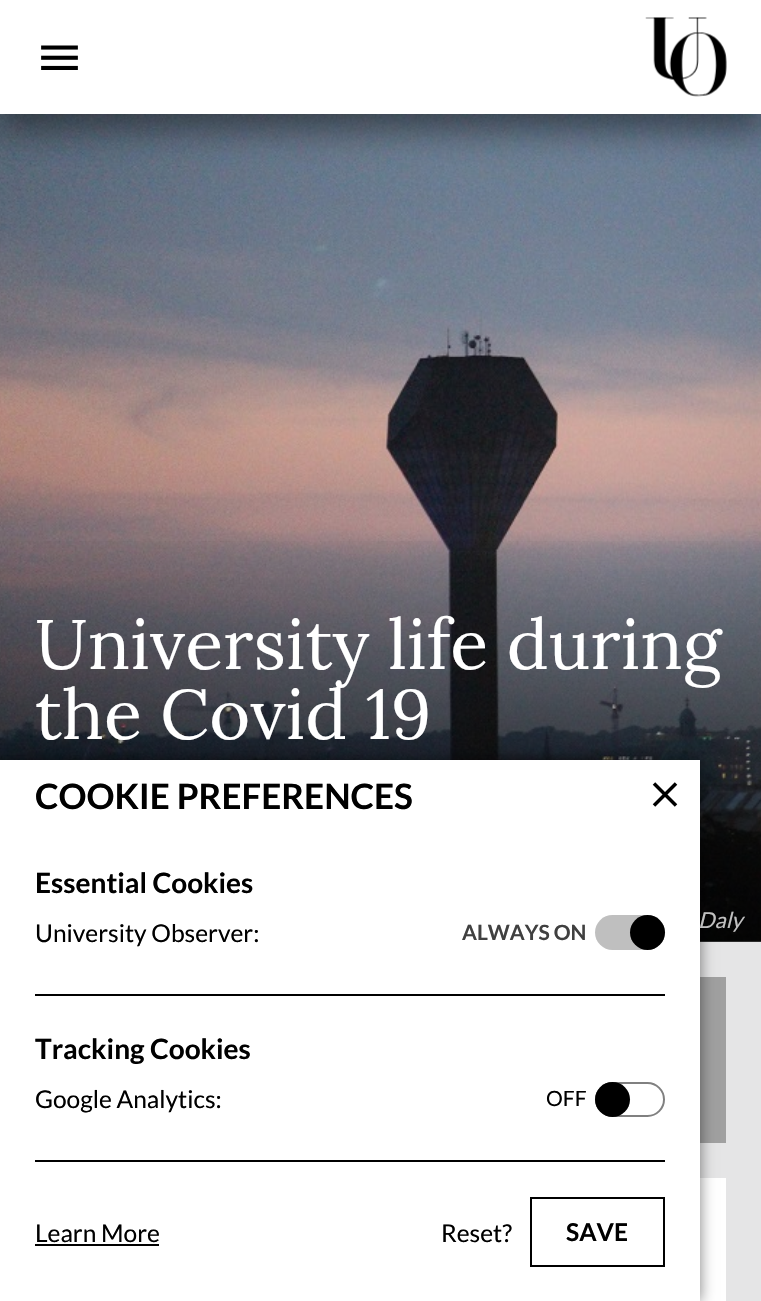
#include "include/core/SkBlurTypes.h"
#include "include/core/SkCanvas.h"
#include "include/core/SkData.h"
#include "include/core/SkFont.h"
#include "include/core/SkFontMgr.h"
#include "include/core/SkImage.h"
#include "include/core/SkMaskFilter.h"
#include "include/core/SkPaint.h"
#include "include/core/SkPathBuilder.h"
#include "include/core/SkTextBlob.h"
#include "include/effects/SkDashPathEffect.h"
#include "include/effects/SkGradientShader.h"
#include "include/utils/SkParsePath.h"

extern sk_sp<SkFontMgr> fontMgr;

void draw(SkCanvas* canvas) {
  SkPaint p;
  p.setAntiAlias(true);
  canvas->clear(SkColorSetRGB(229, 229, 230));
  canvas->drawImageRect(SkImages::DeferredFromEncodedData(SkData::MakeFromFileName("images/3.png")), SkRect::MakeLTRB(0, 114, 761, 942), SkSamplingOptions());
  p.setColor(SkColorSetARGB(115, 0, 0, 0));
  p.setMaskFilter(SkMaskFilter::MakeBlur(kNormal_SkBlurStyle, 16));
  canvas->drawRect(SkRect::MakeLTRB(-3, 11, 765, 131), p);
  p.setMaskFilter(nullptr);
  p.setColor(SK_ColorWHITE);
  canvas->drawRect(SkRect::MakeLTRB(0, 0, 761, 114), p);
  canvas->drawImageRect(SkImages::DeferredFromEncodedData(SkData::MakeFromFileName("images/1.png")), SkRect::MakeLTRB(41, 45, 78, 70), SkSamplingOptions());
  canvas->drawImageRect(SkImages::DeferredFromEncodedData(SkData::MakeFromFileName("images/2.png")), SkRect::MakeLTRB(645, 17, 727, 97), SkSamplingOptions());
  {
    const SkColor colors[] = {SkColorSetARGB(191, 0, 0, 0), SkColorSetARGB(0, 0, 0, 0)};
    const float stops[] = {0, 1};
    const SkPoint ends[] = {{381, 942}, {381, 529}};
    p.setShader(SkGradientShader::MakeLinear(ends, colors, stops, 2, SkTileMode::kClamp));
    p.setAlpha(255);
  }
  canvas->drawRect(SkRect::MakeLTRB(0, 541, 761, 942), p);
  p.setShader(nullptr);
  p.setColor(SkColorSetRGB(160, 160, 160));
  canvas->drawRect(SkRect::MakeLTRB(700, 977, 726, 1143), p);
  p.setColor(SK_ColorWHITE);
  canvas->drawRect(SkRect::MakeLTRB(700, 1178, 726, 1301), p);
  p.setColor(SkColorSetARGB(128, 0, 0, 0));
  p.setMaskFilter(SkMaskFilter::MakeBlur(kNormal_SkBlurStyle, 7));
  canvas->drawRect(SkRect::MakeLTRB(0, 760, 700, 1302), p);
  p.setMaskFilter(nullptr);
  p.setColor(SK_ColorWHITE);
  canvas->drawRect(SkRect::MakeLTRB(0, 760, 700, 1301), p);
  p.setColor(SK_ColorBLACK);
  canvas->drawRect(SkRect::MakeLTRB(35, 994, 665, 996), p);
  p.setColor(SkColorSetRGB(191, 191, 191));
  canvas->drawRoundRect(SkRect::MakeLTRB(595, 915, 665, 950), 17.5f, 17.5f, p);
  p.setColor(SK_ColorBLACK);
  canvas->drawCircle(647.5f, 932.5f, 17.5f, p);
  canvas->drawRect(SkRect::MakeLTRB(35, 1160, 665, 1162), p);
  p.setStyle(SkPaint::kStroke_Style);
  p.setStrokeWidth(2);
  p.setColor(SkColorSetRGB(128, 128, 128));
  canvas->drawRoundRect(SkRect::MakeLTRB(596, 1083, 664, 1116), 16.5f, 16.5f, p);
  p.setStyle(SkPaint::kFill_Style);
  p.setColor(SK_ColorBLACK);
  canvas->drawCircle(612.5f, 1099.5f, 17.5f, p);
  canvas->drawImageRect(SkImages::DeferredFromEncodedData(SkData::MakeFromFileName("images/4.png")), SkRect::MakeLTRB(652, 782, 678, 807), SkSamplingOptions());
  canvas->drawRect(SkRect::MakeLTRB(35, 1244, 159, 1246), p);
  p.setStyle(SkPaint::kStroke_Style);
  canvas->drawRect(SkRect::MakeLTRB(531, 1198, 664, 1266), p);
  SkFont font1(fontMgr->matchFamilyStyle("Lora", SkFontStyle::Normal()), 70);
  font1.setSubpixel(true);
  p.setStyle(SkPaint::kFill_Style);
  p.setColor(SK_ColorWHITE);
  canvas->drawString("University life during", 35, 669, font1, p);
  canvas->drawString("the Covid 19", 35, 739, font1, p);
  SkFont font2(fontMgr->matchFamilyStyle("Lato", SkFontStyle::Italic()), 22);
  font2.setSubpixel(true);
  p.setColor(SkColorSetRGB(192, 192, 192));
  canvas->drawString("Daly", 698, 928, font2, p);
  SkFont font3(fontMgr->matchFamilyStyle("Lato", SkFontStyle::Bold()), 35);
  font3.setSubpixel(true);
  p.setColor(SK_ColorBLACK);
  canvas->drawString("COOKIE PREFERENCES", 35, 809, font3, p);
  SkFont font4(fontMgr->matchFamilyStyle("Lato", SkFontStyle::Bold()), 28);
  font4.setSubpixel(true);
  canvas->drawString("Essential Cookies", 35, 893, font4, p);
  SkFont font5(fontMgr->matchFamilyStyle("Lato", SkFontStyle::Normal()), 24.5f);
  font5.setSubpixel(true);
  canvas->drawString("University Observer:", 35, 942, font5, p);
  SkFont font6(fontMgr->matchFamilyStyle("Lato", SkFontStyle::Bold()), 21);
  font6.setSubpixel(true);
  p.setColor(SkColorSetRGB(64, 64, 64));
  canvas->drawString("ALWAYS ON", 462, 940, font6, p);
  p.setColor(SK_ColorBLACK);
  canvas->drawString("Tracking Cookies", 35, 1059, font4, p);
  canvas->drawString("Google Analytics:", 35, 1108, font5, p);
  SkFont font7(fontMgr->matchFamilyStyle("Lato", SkFontStyle::Normal()), 21);
  font7.setSubpixel(true);
  canvas->drawString("OFF", 546, 1106, font7, p);
  canvas->drawString("Learn More", 35, 1242, font5, p);
  canvas->drawString("Reset?", 441, 1242, font5, p);
  SkFont font8(fontMgr->matchFamilyStyle("Lato", SkFontStyle::Bold()), 24.5f);
  font8.setSubpixel(true);
  canvas->drawString("SAVE", 566, 1241, font8, p);
}
